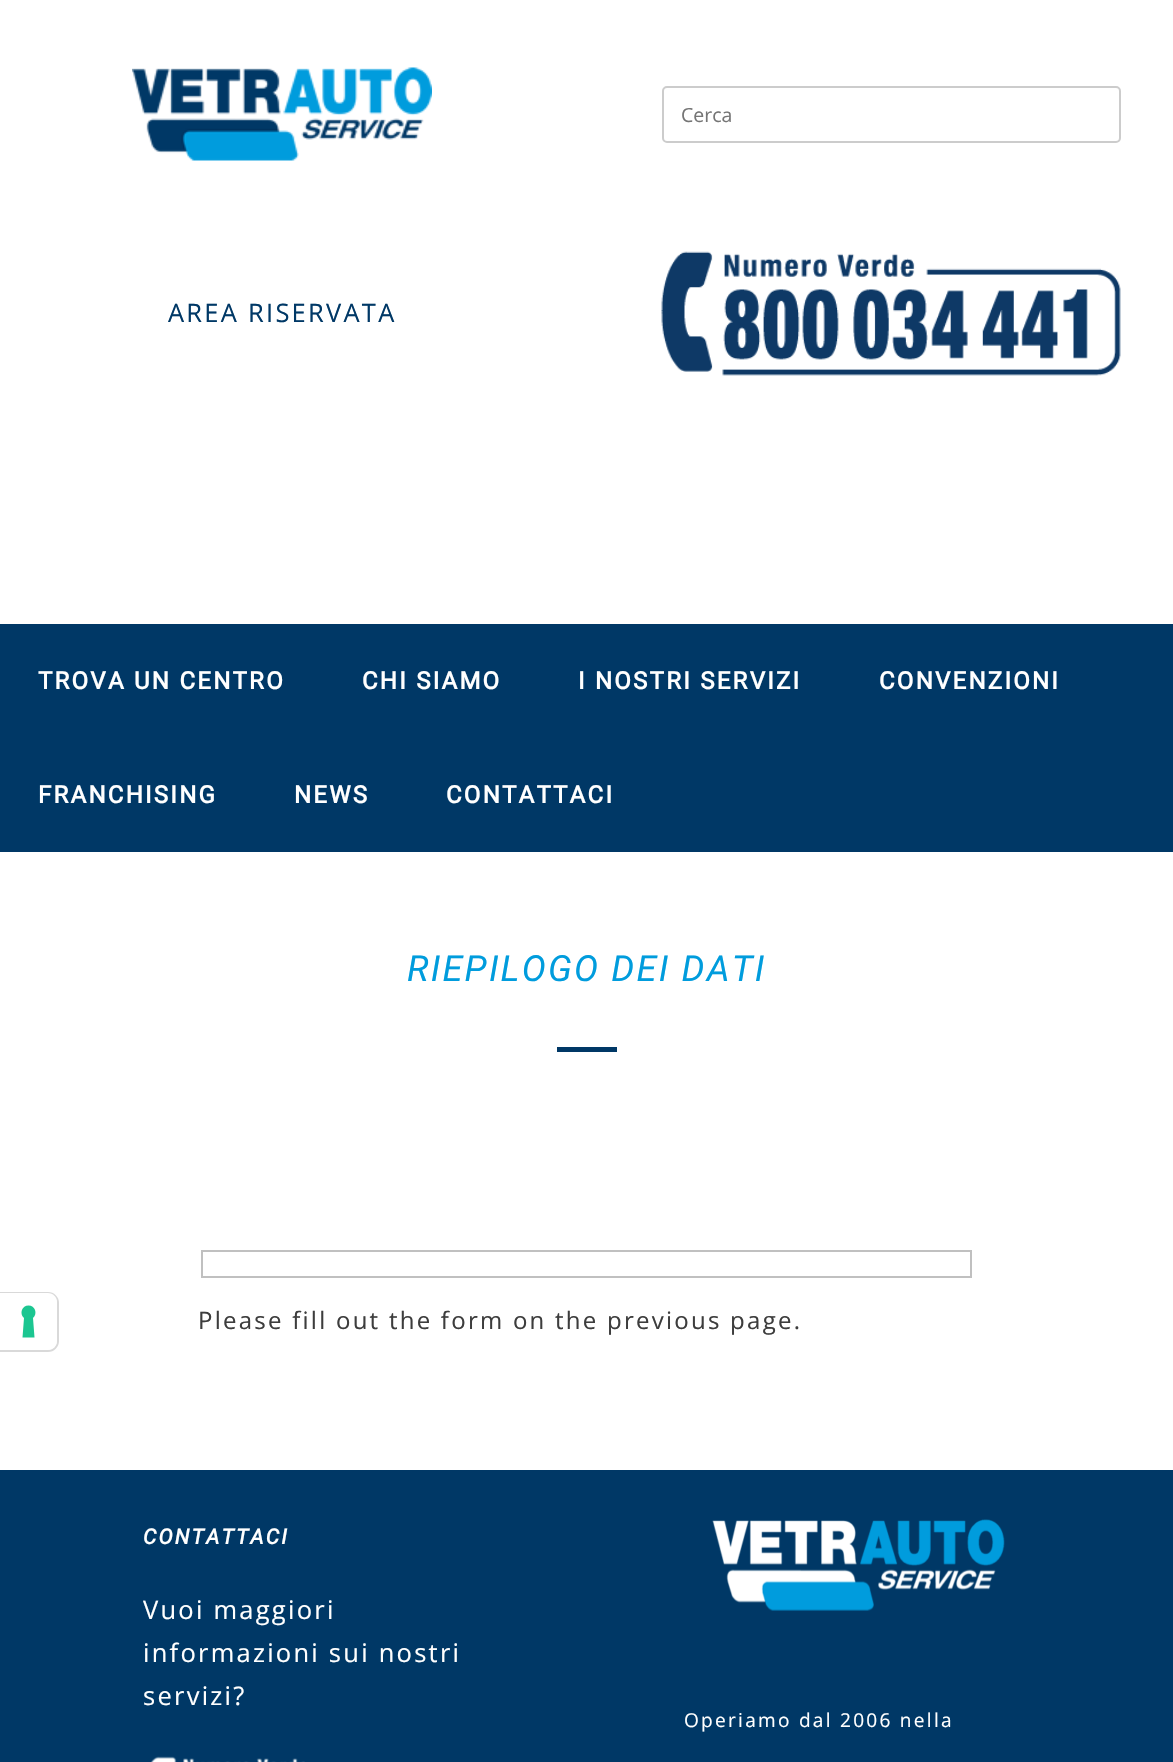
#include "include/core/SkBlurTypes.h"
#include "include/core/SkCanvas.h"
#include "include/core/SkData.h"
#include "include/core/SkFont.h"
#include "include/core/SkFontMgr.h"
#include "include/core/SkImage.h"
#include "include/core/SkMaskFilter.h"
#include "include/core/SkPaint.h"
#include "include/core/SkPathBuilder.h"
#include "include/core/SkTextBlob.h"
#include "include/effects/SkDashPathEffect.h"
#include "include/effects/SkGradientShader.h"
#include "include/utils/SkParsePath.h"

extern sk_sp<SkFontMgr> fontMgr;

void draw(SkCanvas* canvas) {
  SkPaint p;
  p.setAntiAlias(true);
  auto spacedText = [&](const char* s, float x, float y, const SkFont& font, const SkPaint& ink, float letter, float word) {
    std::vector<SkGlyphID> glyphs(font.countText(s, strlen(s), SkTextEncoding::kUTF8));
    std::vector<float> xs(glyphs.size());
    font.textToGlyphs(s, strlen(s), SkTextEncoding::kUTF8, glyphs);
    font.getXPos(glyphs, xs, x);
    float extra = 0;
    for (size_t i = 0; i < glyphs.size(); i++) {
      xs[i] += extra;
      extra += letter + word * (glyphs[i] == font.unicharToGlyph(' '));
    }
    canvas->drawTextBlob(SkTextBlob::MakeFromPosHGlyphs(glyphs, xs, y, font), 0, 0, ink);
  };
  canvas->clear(SkColorSetRGB(0, 56, 102));
  p.setColor(SK_ColorWHITE);
  canvas->drawRect(SkRect::MakeLTRB(0, 852, 1173, 1470), p);
  p.setStyle(SkPaint::kStroke_Style);
  p.setStrokeWidth(2);
  p.setColor(SkColorSetRGB(217, 217, 217));
  canvas->drawPath(SkPathBuilder().moveTo(0, 1293).lineTo(48, 1293).cubicTo(53.5f, 1293, 58, 1297.5f, 58, 1303).lineTo(58, 1341).cubicTo(58, 1346.5f, 53.5f, 1351, 48, 1351).lineTo(0, 1351).close().detach(), p);
  p.setStyle(SkPaint::kFill_Style);
  p.setColor(SK_ColorWHITE);
  canvas->drawPath(SkPathBuilder().moveTo(0, 1293).lineTo(48, 1293).cubicTo(53, 1293, 57, 1297, 57, 1302).lineTo(57, 1341).cubicTo(57, 1346, 53, 1350, 48, 1350).lineTo(0, 1350).close().detach(), p);
  p.setColor(SkColorSetRGB(28, 198, 145));
  canvas->drawPath(SkPathBuilder(SkPathFillType::kEvenOdd).moveTo(28.5f, 1305.5f).cubicTo(35, 1305.5f, 38, 1313.5f, 33, 1318).lineTo(34.5f, 1337.5f).lineTo(22.5f, 1337.5f).lineTo(24, 1318).cubicTo(19, 1313.5f, 22, 1305.5f, 28.5f, 1305.5f).close().detach(), p);
  p.setColor(SK_ColorWHITE);
  canvas->drawRect(SkRect::MakeLTRB(0, 0, 1173, 624), p);
  canvas->drawImageRect(SkImages::DeferredFromEncodedData(SkData::MakeFromFileName("images/1.png")), SkRect::MakeLTRB(132, 67, 432, 161), SkSamplingOptions());
  p.setStyle(SkPaint::kStroke_Style);
  p.setColor(SkColorSetRGB(204, 204, 204));
  canvas->drawRoundRect(SkRect::MakeLTRB(663, 87, 1120, 142), 4, 4, p);
  canvas->drawImageRect(SkImages::DeferredFromEncodedData(SkData::MakeFromFileName("images/2.png")), SkRect::MakeLTRB(661, 251, 1121, 376), SkSamplingOptions());
  p.setStyle(SkPaint::kFill_Style);
  p.setColor(SkColorSetRGB(0, 56, 102));
  canvas->drawRect(SkRect::MakeLTRB(557, 1047, 617, 1052), p);
  p.setStyle(SkPaint::kStroke_Style);
  p.setColor(SkColorSetRGB(192, 192, 192));
  canvas->drawRect(SkRect::MakeLTRB(202, 1251, 971, 1277), p);
  canvas->drawImageRect(SkImages::DeferredFromEncodedData(SkData::MakeFromFileName("images/3.png")), SkRect::MakeLTRB(151, 1756, 305, 1762), SkSamplingOptions());
  canvas->drawImageRect(SkImages::DeferredFromEncodedData(SkData::MakeFromFileName("images/4.png")), SkRect::MakeLTRB(712, 1519, 1005, 1611), SkSamplingOptions());
  SkFont font1(fontMgr->matchFamilyStyle("Open Sans", SkFontStyle::Normal()), 19.5f);
  font1.setSubpixel(true);
  p.setStyle(SkPaint::kFill_Style);
  p.setColor(SkColorSetRGB(117, 117, 117));
  canvas->drawString("Cerca", 681, 122, font1, p);
  SkFont font2(fontMgr->matchFamilyStyle("Open Sans", SkFontStyle::Normal()), 25.5f);
  font2.setSubpixel(true);
  p.setColor(SkColorSetRGB(0, 56, 102));
  spacedText("AREA RISERVATA", 168, 322, font2, p, 2.25f, 0);
  SkFont font3(fontMgr->matchFamilyStyle("Roboto", SkFontStyle::Bold()), 24);
  font3.setSubpixel(true);
  p.setColor(SK_ColorWHITE);
  spacedText("TROVA UN CENTRO", 38, 689, font3, p, 2.25f, 0);
  spacedText("CHI SIAMO", 362, 689, font3, p, 2.25f, 0);
  spacedText("I NOSTRI SERVIZI", 578, 689, font3, p, 2.25f, 0);
  spacedText("CONVENZIONI", 879, 689, font3, p, 2.25f, 0);
  spacedText("FRANCHISING", 38, 803, font3, p, 2.25f, 0);
  spacedText("NEWS", 294, 803, font3, p, 2.25f, 0);
  spacedText("CONTATTACI", 446, 803, font3, p, 2.25f, 0);
  SkFont font4(fontMgr->matchFamilyStyle("Roboto", SkFontStyle::Italic()), 36);
  font4.setSubpixel(true);
  p.setColor(SkColorSetRGB(0, 156, 221));
  spacedText("RIEPILOGO DEI DATI", 407, 981, font4, p, 2.25f, 0);
  SkFont font5(fontMgr->matchFamilyStyle("Open Sans", SkFontStyle::Normal()), 24);
  font5.setSubpixel(true);
  p.setColor(SkColorSetRGB(61, 61, 61));
  spacedText("Please fill out the form on the previous page.", 198, 1329, font5, p, 2.25f, 0);
  SkFont font6(fontMgr->matchFamilyStyle("Roboto", SkFontStyle::BoldItalic()), 21);
  font6.setSubpixel(true);
  p.setColor(SK_ColorWHITE);
  spacedText("CONTATTACI", 143, 1544, font6, p, 2.25f, 0);
  spacedText("Vuoi maggiori", 143, 1619, font2, p, 2.25f, 0);
  spacedText("informazioni sui nostri", 143, 1662, font2, p, 2.25f, 0);
  spacedText("servizi?", 143, 1705, font2, p, 2.25f, 0);
  SkFont font7(fontMgr->matchFamilyStyle("Open Sans", SkFontStyle::Normal()), 19.1f);
  font7.setSubpixel(true);
  spacedText("Operiamo dal 2006 nella", 684, 1727, font7, p, 2.25f, 0);
}
